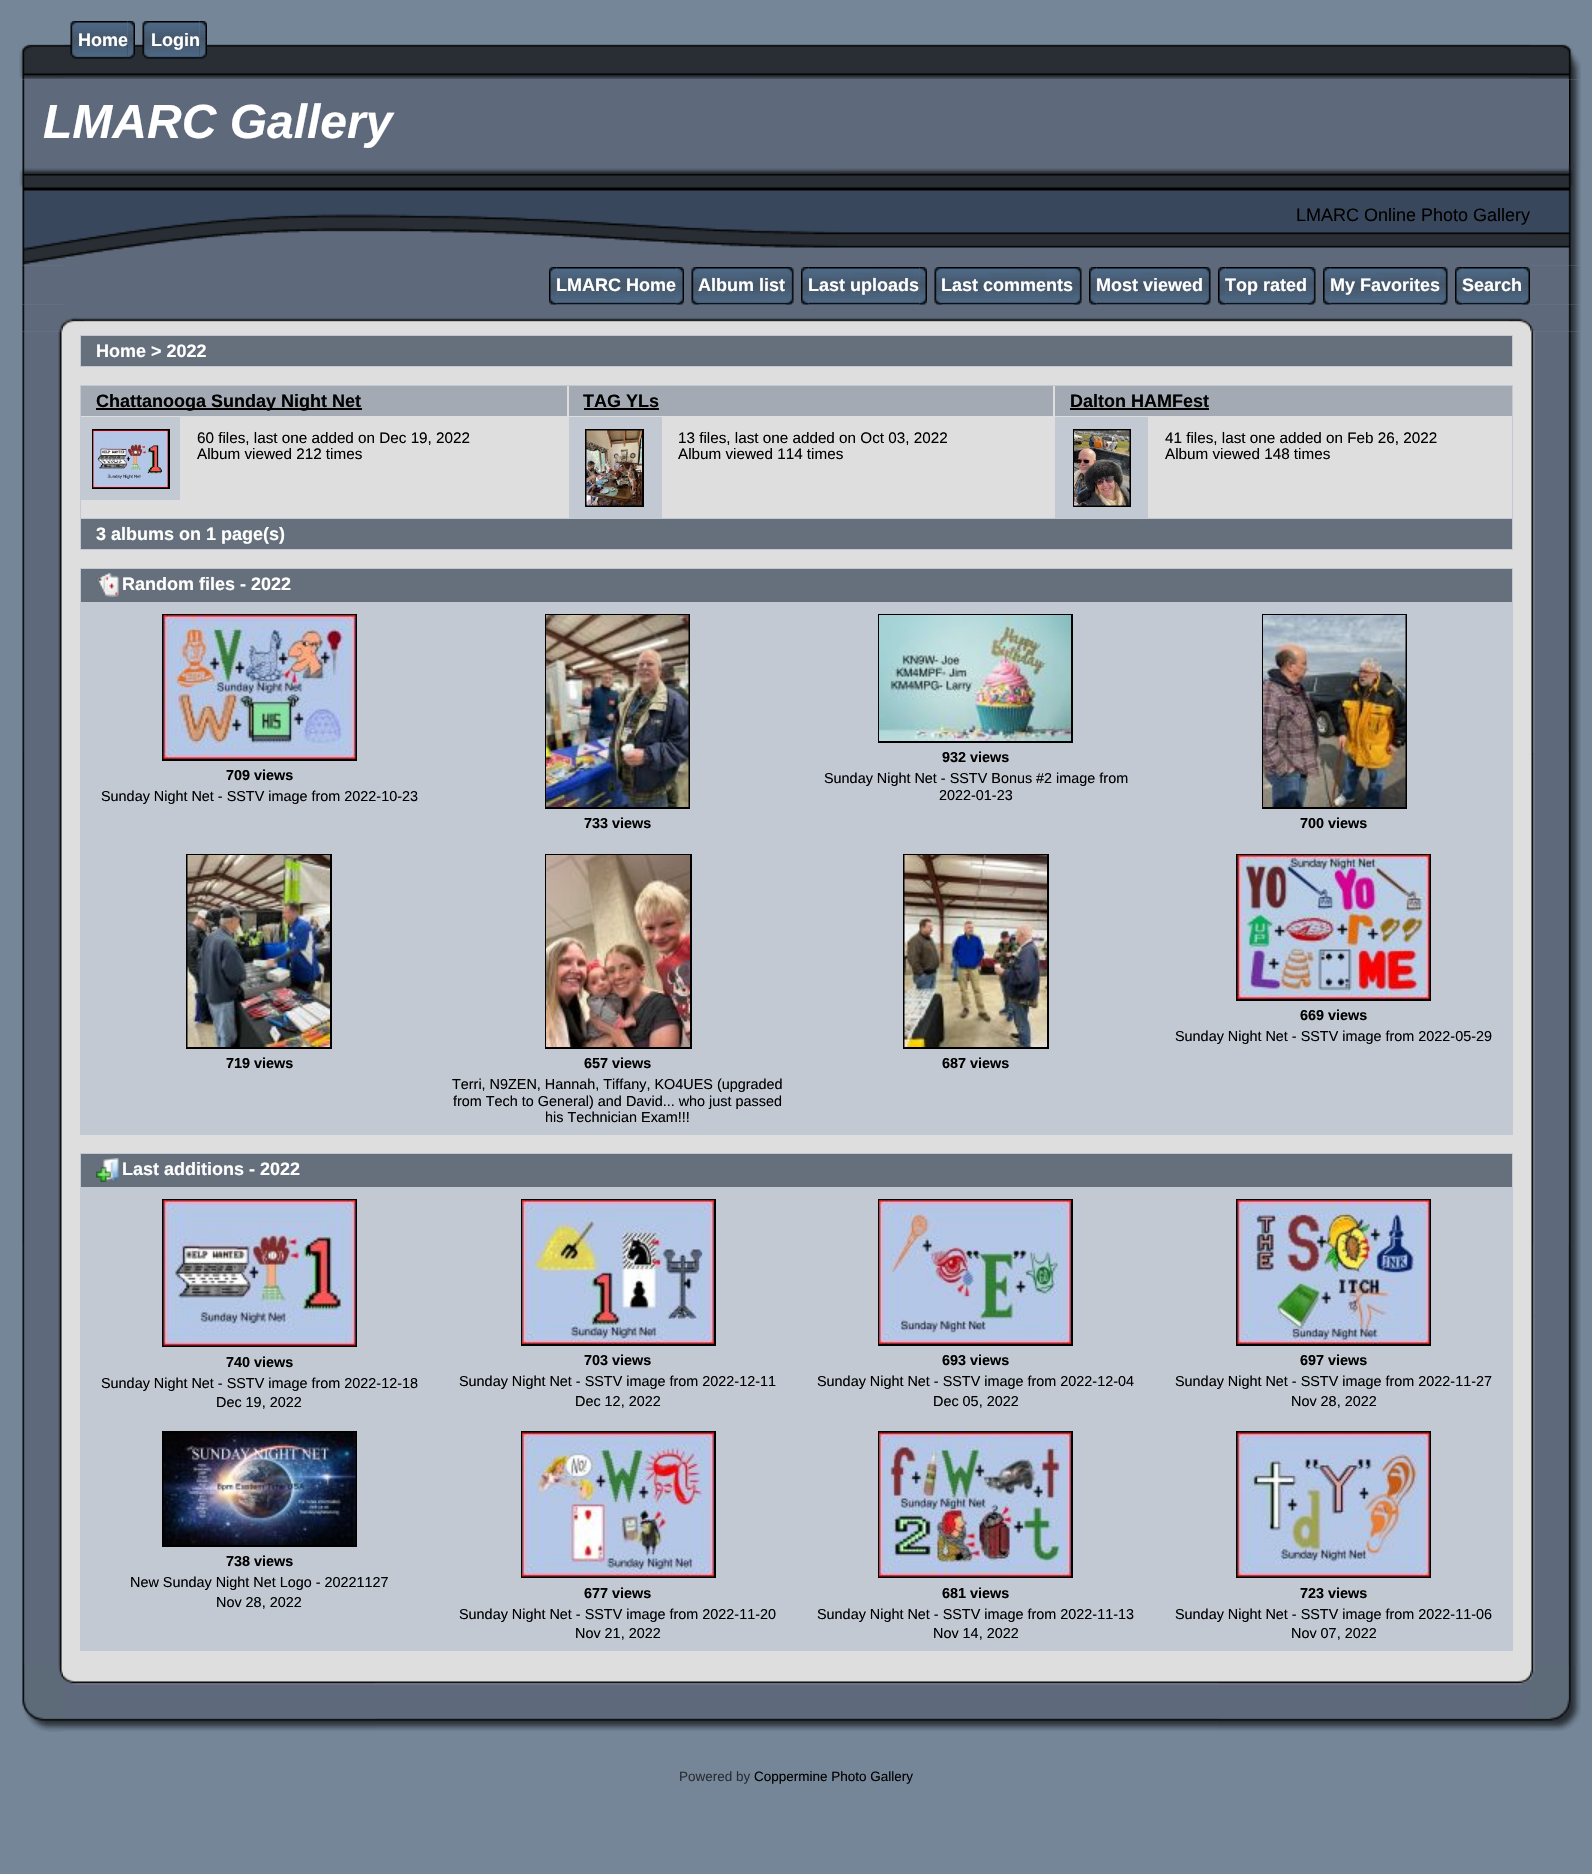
#include "include/core/SkBlurTypes.h"
#include "include/core/SkCanvas.h"
#include "include/core/SkData.h"
#include "include/core/SkFont.h"
#include "include/core/SkFontMgr.h"
#include "include/core/SkImage.h"
#include "include/core/SkMaskFilter.h"
#include "include/core/SkPaint.h"
#include "include/core/SkPathBuilder.h"
#include "include/core/SkTextBlob.h"
#include "include/effects/SkDashPathEffect.h"
#include "include/effects/SkGradientShader.h"
#include "include/utils/SkParsePath.h"

extern sk_sp<SkFontMgr> fontMgr;

void draw(SkCanvas* canvas) {
  SkPaint p;
  p.setAntiAlias(true);
  canvas->clear(SkColorSetRGB(117, 134, 152));
  canvas->drawImageRect(SkImages::DeferredFromEncodedData(SkData::MakeFromFileName("images/1.png")), SkRect::MakeLTRB(63, 44, 1530, 79), SkSamplingOptions());
  canvas->drawImageRect(SkImages::DeferredFromEncodedData(SkData::MakeFromFileName("images/2.png")), SkRect::MakeLTRB(70, 21, 78, 59), SkSamplingOptions());
  canvas->drawImageRect(SkImages::DeferredFromEncodedData(SkData::MakeFromFileName("images/3.png")), SkRect::MakeLTRB(78, 21, 128, 59), SkSamplingOptions());
  canvas->drawImageRect(SkImages::DeferredFromEncodedData(SkData::MakeFromFileName("images/2.png")), SkRect::MakeLTRB(142, 21, 150, 59), SkSamplingOptions());
  canvas->drawImageRect(SkImages::DeferredFromEncodedData(SkData::MakeFromFileName("images/5.png")), SkRect::MakeLTRB(150, 21, 200, 59), SkSamplingOptions());
  canvas->drawImageRect(SkImages::DeferredFromEncodedData(SkData::MakeFromFileName("images/6.png")), SkRect::MakeLTRB(199, 21, 207, 59), SkSamplingOptions());
  canvas->drawImageRect(SkImages::DeferredFromEncodedData(SkData::MakeFromFileName("images/7.png")), SkRect::MakeLTRB(19, 44, 63, 80), SkSamplingOptions());
  canvas->drawImageRect(SkImages::DeferredFromEncodedData(SkData::MakeFromFileName("images/8.png")), SkRect::MakeLTRB(1530, 44, 1581, 80), SkSamplingOptions());
  canvas->drawImageRect(SkImages::DeferredFromEncodedData(SkData::MakeFromFileName("images/9.png")), SkRect::MakeLTRB(22, 79, 27, 165), SkSamplingOptions());
  p.setColor(SkColorSetRGB(94, 105, 123));
  canvas->drawRect(SkRect::MakeLTRB(27, 79, 1569, 165), p);
  canvas->drawImageRect(SkImages::DeferredFromEncodedData(SkData::MakeFromFileName("images/10.png")), SkRect::MakeLTRB(1569, 79, 1581, 165), SkSamplingOptions());
  canvas->drawImageRect(SkImages::DeferredFromEncodedData(SkData::MakeFromFileName("images/11.png")), SkRect::MakeLTRB(19, 165, 840, 266), SkSamplingOptions());
  canvas->drawImageRect(SkImages::DeferredFromEncodedData(SkData::MakeFromFileName("images/12.png")), SkRect::MakeLTRB(840, 165, 1530, 265), SkSamplingOptions());
  canvas->drawImageRect(SkImages::DeferredFromEncodedData(SkData::MakeFromFileName("images/13.png")), SkRect::MakeLTRB(1530, 165, 1581, 266), SkSamplingOptions());
  canvas->drawImageRect(SkImages::DeferredFromEncodedData(SkData::MakeFromFileName("images/14.png")), SkRect::MakeLTRB(22, 265, 63, 305), SkSamplingOptions());
  canvas->drawRect(SkRect::MakeLTRB(63, 265, 1530, 305), p);
  canvas->drawImageRect(SkImages::DeferredFromEncodedData(SkData::MakeFromFileName("images/16.png")), SkRect::MakeLTRB(556, 267, 677, 305), SkSamplingOptions());
  canvas->drawImageRect(SkImages::DeferredFromEncodedData(SkData::MakeFromFileName("images/19.png")), SkRect::MakeLTRB(699, 267, 786, 305), SkSamplingOptions());
  canvas->drawImageRect(SkImages::DeferredFromEncodedData(SkData::MakeFromFileName("images/21.png")), SkRect::MakeLTRB(808, 267, 920, 305), SkSamplingOptions());
  canvas->drawImageRect(SkImages::DeferredFromEncodedData(SkData::MakeFromFileName("images/24.png")), SkRect::MakeLTRB(942, 267, 1074, 305), SkSamplingOptions());
  canvas->drawImageRect(SkImages::DeferredFromEncodedData(SkData::MakeFromFileName("images/27.png")), SkRect::MakeLTRB(1096, 267, 1203, 305), SkSamplingOptions());
  canvas->drawImageRect(SkImages::DeferredFromEncodedData(SkData::MakeFromFileName("images/29.png")), SkRect::MakeLTRB(1225, 267, 1308, 305), SkSamplingOptions());
  canvas->drawImageRect(SkImages::DeferredFromEncodedData(SkData::MakeFromFileName("images/30.png")), SkRect::MakeLTRB(1330, 267, 1440, 305), SkSamplingOptions());
  canvas->drawImageRect(SkImages::DeferredFromEncodedData(SkData::MakeFromFileName("images/32.png")), SkRect::MakeLTRB(1462, 267, 1523, 305), SkSamplingOptions());
  canvas->drawImageRect(SkImages::DeferredFromEncodedData(SkData::MakeFromFileName("images/37.png")), SkRect::MakeLTRB(84, 304, 1509, 331), SkSamplingOptions());
  canvas->drawImageRect(SkImages::DeferredFromEncodedData(SkData::MakeFromFileName("images/15.png")), SkRect::MakeLTRB(549, 267, 557, 305), SkSamplingOptions());
  canvas->drawImageRect(SkImages::DeferredFromEncodedData(SkData::MakeFromFileName("images/17.png")), SkRect::MakeLTRB(676, 267, 684, 305), SkSamplingOptions());
  canvas->drawImageRect(SkImages::DeferredFromEncodedData(SkData::MakeFromFileName("images/18.png")), SkRect::MakeLTRB(691, 267, 699, 305), SkSamplingOptions());
  canvas->drawImageRect(SkImages::DeferredFromEncodedData(SkData::MakeFromFileName("images/20.png")), SkRect::MakeLTRB(786, 267, 794, 305), SkSamplingOptions());
  canvas->drawImageRect(SkImages::DeferredFromEncodedData(SkData::MakeFromFileName("images/15.png")), SkRect::MakeLTRB(801, 267, 809, 305), SkSamplingOptions());
  canvas->drawImageRect(SkImages::DeferredFromEncodedData(SkData::MakeFromFileName("images/22.png")), SkRect::MakeLTRB(919, 267, 927, 305), SkSamplingOptions());
  canvas->drawImageRect(SkImages::DeferredFromEncodedData(SkData::MakeFromFileName("images/23.png")), SkRect::MakeLTRB(934, 267, 942, 305), SkSamplingOptions());
  canvas->drawImageRect(SkImages::DeferredFromEncodedData(SkData::MakeFromFileName("images/25.png")), SkRect::MakeLTRB(1074, 267, 1082, 305), SkSamplingOptions());
  canvas->drawImageRect(SkImages::DeferredFromEncodedData(SkData::MakeFromFileName("images/26.png")), SkRect::MakeLTRB(1089, 267, 1097, 305), SkSamplingOptions());
  canvas->drawImageRect(SkImages::DeferredFromEncodedData(SkData::MakeFromFileName("images/25.png")), SkRect::MakeLTRB(1203, 267, 1211, 305), SkSamplingOptions());
  canvas->drawImageRect(SkImages::DeferredFromEncodedData(SkData::MakeFromFileName("images/28.png")), SkRect::MakeLTRB(1218, 267, 1226, 305), SkSamplingOptions());
  canvas->drawImageRect(SkImages::DeferredFromEncodedData(SkData::MakeFromFileName("images/20.png")), SkRect::MakeLTRB(1308, 267, 1316, 305), SkSamplingOptions());
  canvas->drawImageRect(SkImages::DeferredFromEncodedData(SkData::MakeFromFileName("images/26.png")), SkRect::MakeLTRB(1323, 267, 1331, 305), SkSamplingOptions());
  canvas->drawImageRect(SkImages::DeferredFromEncodedData(SkData::MakeFromFileName("images/20.png")), SkRect::MakeLTRB(1440, 267, 1448, 305), SkSamplingOptions());
  canvas->drawImageRect(SkImages::DeferredFromEncodedData(SkData::MakeFromFileName("images/31.png")), SkRect::MakeLTRB(1455, 267, 1463, 305), SkSamplingOptions());
  canvas->drawImageRect(SkImages::DeferredFromEncodedData(SkData::MakeFromFileName("images/38.png")), SkRect::MakeLTRB(1509, 304, 1530, 331), SkSamplingOptions());
  canvas->drawImageRect(SkImages::DeferredFromEncodedData(SkData::MakeFromFileName("images/33.png")), SkRect::MakeLTRB(1522, 267, 1530, 305), SkSamplingOptions());
  canvas->drawImageRect(SkImages::DeferredFromEncodedData(SkData::MakeFromFileName("images/34.png")), SkRect::MakeLTRB(1530, 265, 1581, 305), SkSamplingOptions());
  canvas->drawImageRect(SkImages::DeferredFromEncodedData(SkData::MakeFromFileName("images/35.png")), SkRect::MakeLTRB(22, 304, 63, 332), SkSamplingOptions());
  canvas->drawImageRect(SkImages::DeferredFromEncodedData(SkData::MakeFromFileName("images/36.png")), SkRect::MakeLTRB(63, 305, 84, 331), SkSamplingOptions());
  canvas->drawImageRect(SkImages::DeferredFromEncodedData(SkData::MakeFromFileName("images/39.png")), SkRect::MakeLTRB(1530, 304, 1581, 332), SkSamplingOptions());
  canvas->drawImageRect(SkImages::DeferredFromEncodedData(SkData::MakeFromFileName("images/40.png")), SkRect::MakeLTRB(22, 331, 63, 1665), SkSamplingOptions());
  p.setColor(SkColorSetRGB(11, 13, 15));
  canvas->drawRect(SkRect::MakeLTRB(23, 753, 24, 1245), p);
  p.setColor(SkColorSetRGB(222, 222, 222));
  canvas->drawRect(SkRect::MakeLTRB(63, 331, 1530, 1665), p);
  p.setColor(SkColorSetRGB(194, 201, 211));
  canvas->drawRect(SkRect::MakeLTRB(80, 335, 1513, 367), p);
  p.setColor(SkColorSetRGB(102, 112, 124));
  canvas->drawRect(SkRect::MakeLTRB(81, 336, 1512, 366), p);
  p.setColor(SkColorSetRGB(194, 201, 211));
  canvas->drawRect(SkRect::MakeLTRB(80, 385, 1513, 550), p);
  p.setColor(SkColorSetRGB(222, 222, 222));
  canvas->drawRect(SkRect::MakeLTRB(81, 386, 1512, 518), p);
  p.setColor(SkColorSetRGB(163, 170, 180));
  canvas->drawRect(SkRect::MakeLTRB(81, 386, 567, 416), p);
  p.setColor(SK_ColorBLACK);
  canvas->drawRect(SkRect::MakeLTRB(96, 408, 362, 410), p);
  p.setColor(SkColorSetRGB(194, 201, 211));
  canvas->drawRect(SkRect::MakeLTRB(81, 417, 180, 500), p);
  p.setStyle(SkPaint::kStroke_Style);
  p.setStrokeWidth(2);
  p.setColor(SK_ColorBLACK);
  canvas->drawRect(SkRect::MakeLTRB(93, 430, 169, 488), p);
  canvas->drawImageRect(SkImages::DeferredFromEncodedData(SkData::MakeFromFileName("images/41.png")), SkRect::MakeLTRB(93, 430, 168, 488), SkSamplingOptions());
  p.setStyle(SkPaint::kFill_Style);
  p.setColor(SkColorSetRGB(163, 170, 180));
  canvas->drawRect(SkRect::MakeLTRB(569, 386, 1053, 416), p);
  p.setColor(SK_ColorBLACK);
  canvas->drawRect(SkRect::MakeLTRB(584, 408, 659, 410), p);
  p.setColor(SkColorSetRGB(194, 201, 211));
  canvas->drawRect(SkRect::MakeLTRB(569, 417, 662, 518), p);
  p.setStyle(SkPaint::kStroke_Style);
  p.setColor(SK_ColorBLACK);
  canvas->drawRect(SkRect::MakeLTRB(586, 430, 643, 506), p);
  canvas->drawImageRect(SkImages::DeferredFromEncodedData(SkData::MakeFromFileName("images/42.png")), SkRect::MakeLTRB(586, 430, 642, 506), SkSamplingOptions());
  p.setStyle(SkPaint::kFill_Style);
  p.setColor(SkColorSetRGB(163, 170, 180));
  canvas->drawRect(SkRect::MakeLTRB(1055, 386, 1512, 416), p);
  p.setColor(SK_ColorBLACK);
  canvas->drawRect(SkRect::MakeLTRB(1070, 408, 1209, 410), p);
  p.setColor(SkColorSetRGB(194, 201, 211));
  canvas->drawRect(SkRect::MakeLTRB(1055, 417, 1148, 518), p);
  p.setStyle(SkPaint::kStroke_Style);
  p.setColor(SK_ColorBLACK);
  canvas->drawRect(SkRect::MakeLTRB(1074, 430, 1130, 506), p);
  canvas->drawImageRect(SkImages::DeferredFromEncodedData(SkData::MakeFromFileName("images/43.png")), SkRect::MakeLTRB(1074, 430, 1130, 506), SkSamplingOptions());
  p.setStyle(SkPaint::kFill_Style);
  p.setColor(SkColorSetRGB(102, 112, 124));
  canvas->drawRect(SkRect::MakeLTRB(81, 519, 1512, 549), p);
  p.setColor(SkColorSetRGB(194, 201, 211));
  canvas->drawRect(SkRect::MakeLTRB(80, 568, 1513, 1135), p);
  p.setColor(SkColorSetRGB(102, 112, 124));
  canvas->drawRect(SkRect::MakeLTRB(81, 569, 1512, 602), p);
  canvas->drawImageRect(SkImages::DeferredFromEncodedData(SkData::MakeFromFileName("images/44.png")), SkRect::MakeLTRB(96, 573, 119, 597), SkSamplingOptions());
  p.setStyle(SkPaint::kStroke_Style);
  p.setColor(SK_ColorBLACK);
  canvas->drawRect(SkRect::MakeLTRB(163, 615, 356, 760), p);
  canvas->drawImageRect(SkImages::DeferredFromEncodedData(SkData::MakeFromFileName("images/45.png")), SkRect::MakeLTRB(163, 615, 356, 759), SkSamplingOptions());
  canvas->drawRect(SkRect::MakeLTRB(879, 615, 1072, 742), p);
  canvas->drawImageRect(SkImages::DeferredFromEncodedData(SkData::MakeFromFileName("images/46.png")), SkRect::MakeLTRB(879, 615, 1071, 741), SkSamplingOptions());
  canvas->drawRect(SkRect::MakeLTRB(546, 615, 689, 808), p);
  canvas->drawImageRect(SkImages::DeferredFromEncodedData(SkData::MakeFromFileName("images/47.png")), SkRect::MakeLTRB(546, 615, 689, 807), SkSamplingOptions());
  canvas->drawRect(SkRect::MakeLTRB(1263, 615, 1406, 808), p);
  canvas->drawImageRect(SkImages::DeferredFromEncodedData(SkData::MakeFromFileName("images/48.png")), SkRect::MakeLTRB(1263, 615, 1406, 807), SkSamplingOptions());
  canvas->drawRect(SkRect::MakeLTRB(1237, 855, 1430, 1000), p);
  canvas->drawImageRect(SkImages::DeferredFromEncodedData(SkData::MakeFromFileName("images/49.png")), SkRect::MakeLTRB(1237, 855, 1430, 999), SkSamplingOptions());
  canvas->drawRect(SkRect::MakeLTRB(187, 855, 331, 1048), p);
  canvas->drawImageRect(SkImages::DeferredFromEncodedData(SkData::MakeFromFileName("images/50.png")), SkRect::MakeLTRB(187, 855, 330, 1047), SkSamplingOptions());
  canvas->drawRect(SkRect::MakeLTRB(546, 855, 691, 1048), p);
  canvas->drawImageRect(SkImages::DeferredFromEncodedData(SkData::MakeFromFileName("images/51.png")), SkRect::MakeLTRB(546, 855, 690, 1047), SkSamplingOptions());
  canvas->drawRect(SkRect::MakeLTRB(904, 855, 1048, 1048), p);
  canvas->drawImageRect(SkImages::DeferredFromEncodedData(SkData::MakeFromFileName("images/52.png")), SkRect::MakeLTRB(904, 855, 1047, 1047), SkSamplingOptions());
  p.setStyle(SkPaint::kFill_Style);
  p.setColor(SkColorSetRGB(194, 201, 211));
  canvas->drawRect(SkRect::MakeLTRB(80, 1153, 1513, 1651), p);
  p.setColor(SkColorSetRGB(102, 112, 124));
  canvas->drawRect(SkRect::MakeLTRB(81, 1154, 1512, 1187), p);
  canvas->drawImageRect(SkImages::DeferredFromEncodedData(SkData::MakeFromFileName("images/53.png")), SkRect::MakeLTRB(96, 1158, 119, 1182), SkSamplingOptions());
  p.setStyle(SkPaint::kStroke_Style);
  p.setColor(SK_ColorBLACK);
  canvas->drawRect(SkRect::MakeLTRB(163, 1200, 356, 1346), p);
  canvas->drawImageRect(SkImages::DeferredFromEncodedData(SkData::MakeFromFileName("images/54.png")), SkRect::MakeLTRB(163, 1200, 356, 1346), SkSamplingOptions());
  canvas->drawRect(SkRect::MakeLTRB(522, 1200, 715, 1345), p);
  canvas->drawImageRect(SkImages::DeferredFromEncodedData(SkData::MakeFromFileName("images/55.png")), SkRect::MakeLTRB(522, 1200, 714, 1344), SkSamplingOptions());
  canvas->drawRect(SkRect::MakeLTRB(879, 1200, 1072, 1345), p);
  canvas->drawImageRect(SkImages::DeferredFromEncodedData(SkData::MakeFromFileName("images/56.png")), SkRect::MakeLTRB(879, 1200, 1071, 1344), SkSamplingOptions());
  canvas->drawRect(SkRect::MakeLTRB(1237, 1200, 1430, 1345), p);
  canvas->drawImageRect(SkImages::DeferredFromEncodedData(SkData::MakeFromFileName("images/57.png")), SkRect::MakeLTRB(1237, 1200, 1430, 1344), SkSamplingOptions());
  canvas->drawRect(SkRect::MakeLTRB(163, 1432, 356, 1546), p);
  canvas->drawImageRect(SkImages::DeferredFromEncodedData(SkData::MakeFromFileName("images/58.png")), SkRect::MakeLTRB(163, 1432, 356, 1545), SkSamplingOptions());
  canvas->drawRect(SkRect::MakeLTRB(522, 1432, 715, 1577), p);
  canvas->drawImageRect(SkImages::DeferredFromEncodedData(SkData::MakeFromFileName("images/59.png")), SkRect::MakeLTRB(522, 1432, 714, 1577), SkSamplingOptions());
  canvas->drawRect(SkRect::MakeLTRB(879, 1432, 1072, 1577), p);
  canvas->drawImageRect(SkImages::DeferredFromEncodedData(SkData::MakeFromFileName("images/60.png")), SkRect::MakeLTRB(879, 1432, 1071, 1577), SkSamplingOptions());
  canvas->drawRect(SkRect::MakeLTRB(1237, 1432, 1430, 1577), p);
  canvas->drawImageRect(SkImages::DeferredFromEncodedData(SkData::MakeFromFileName("images/61.png")), SkRect::MakeLTRB(1237, 1432, 1430, 1577), SkSamplingOptions());
  canvas->drawImageRect(SkImages::DeferredFromEncodedData(SkData::MakeFromFileName("images/62.png")), SkRect::MakeLTRB(1530, 331, 1581, 1665), SkSamplingOptions());
  canvas->drawImageRect(SkImages::DeferredFromEncodedData(SkData::MakeFromFileName("images/63.png")), SkRect::MakeLTRB(1532, 753, 1569, 1245), SkSamplingOptions());
  canvas->drawImageRect(SkImages::DeferredFromEncodedData(SkData::MakeFromFileName("images/64.png")), SkRect::MakeLTRB(22, 1665, 63, 1732), SkSamplingOptions());
  canvas->drawImageRect(SkImages::DeferredFromEncodedData(SkData::MakeFromFileName("images/65.png")), SkRect::MakeLTRB(63, 1665, 375, 1731), SkSamplingOptions());
  canvas->drawImageRect(SkImages::DeferredFromEncodedData(SkData::MakeFromFileName("images/66.png")), SkRect::MakeLTRB(375, 1665, 1218, 1731), SkSamplingOptions());
  canvas->drawImageRect(SkImages::DeferredFromEncodedData(SkData::MakeFromFileName("images/67.png")), SkRect::MakeLTRB(1218, 1665, 1530, 1731), SkSamplingOptions());
  canvas->drawImageRect(SkImages::DeferredFromEncodedData(SkData::MakeFromFileName("images/68.png")), SkRect::MakeLTRB(1530, 1665, 1581, 1731), SkSamplingOptions());
  SkFont font1(fontMgr->matchFamilyStyle("Liberation Sans", SkFontStyle::Bold()), 18);
  font1.setSubpixel(true);
  p.setStyle(SkPaint::kFill_Style);
  p.setColor(SK_ColorWHITE);
  canvas->drawString("Home", 78, 46, font1, p);
  canvas->drawImageRect(SkImages::DeferredFromEncodedData(SkData::MakeFromFileName("images/4.png")), SkRect::MakeLTRB(127, 21, 135, 59), SkSamplingOptions());
  canvas->drawString("Login", 151, 46, font1, p);
  SkFont font2(fontMgr->matchFamilyStyle("Liberation Sans", SkFontStyle::BoldItalic()), 48);
  font2.setSubpixel(true);
  canvas->drawString("LMARC Gallery", 43, 138, font2, p);
  SkFont font3(fontMgr->matchFamilyStyle("Liberation Sans", SkFontStyle::Normal()), 18);
  font3.setSubpixel(true);
  p.setColor(SK_ColorBLACK);
  canvas->drawString("LMARC Online Photo Gallery", 1296, 221, font3, p);
  p.setColor(SK_ColorWHITE);
  canvas->drawString("LMARC Home", 556, 291, font1, p);
  canvas->drawString("Album list", 698, 291, font1, p);
  canvas->drawString("Last uploads", 808, 291, font1, p);
  canvas->drawString("Last comments", 941, 291, font1, p);
  canvas->drawString("Most viewed", 1096, 291, font1, p);
  canvas->drawString("Top rated", 1225, 291, font1, p);
  canvas->drawString("My Favorites", 1330, 291, font1, p);
  canvas->drawString("Search", 1462, 291, font1, p);
  canvas->drawString("Home > 2022", 96, 357, font1, p);
  p.setColor(SK_ColorBLACK);
  canvas->drawString("Chattanooga Sunday Night Net", 96, 407, font1, p);
  SkFont font4(fontMgr->matchFamilyStyle("Liberation Sans", SkFontStyle::Normal()), 15.25f);
  font4.setSubpixel(true);
  canvas->drawString("60 files, last one added on Dec 19, 2022", 197, 443, font4, p);
  canvas->drawString("Album viewed 212 times", 197, 459, font4, p);
  canvas->drawString("TAG YLs", 583, 407, font1, p);
  canvas->drawString("13 files, last one added on Oct 03, 2022", 678, 443, font4, p);
  canvas->drawString("Album viewed 114 times", 678, 459, font4, p);
  canvas->drawString("Dalton HAMFest", 1070, 407, font1, p);
  canvas->drawString("41 files, last one added on Feb 26, 2022", 1165, 443, font4, p);
  canvas->drawString("Album viewed 148 times", 1165, 459, font4, p);
  p.setColor(SK_ColorWHITE);
  canvas->drawString("3 albums on 1 page(s)", 96, 540, font1, p);
  canvas->drawString("Random files - 2022", 122, 590, font1, p);
  SkFont font5(fontMgr->matchFamilyStyle("Liberation Sans", SkFontStyle::Bold()), 14.4f);
  font5.setSubpixel(true);
  p.setColor(SK_ColorBLACK);
  canvas->drawString("709 views", 226, 780, font5, p);
  SkFont font6(fontMgr->matchFamilyStyle("Liberation Sans", SkFontStyle::Normal()), 14.4f);
  font6.setSubpixel(true);
  canvas->drawString("Sunday Night Net - SSTV image from 2022-10-23", 101, 801, font6, p);
  canvas->drawString("932 views", 942, 762, font5, p);
  canvas->drawString("Sunday Night Net - SSTV Bonus #2 image from", 824, 783, font6, p);
  canvas->drawString("2022-01-23", 939, 800, font6, p);
  canvas->drawString("733 views", 584, 828, font5, p);
  canvas->drawString("700 views", 1300, 828, font5, p);
  canvas->drawString("669 views", 1300, 1020, font5, p);
  canvas->drawString("Sunday Night Net - SSTV image from 2022-05-29", 1175, 1041, font6, p);
  canvas->drawString("719 views", 226, 1068, font5, p);
  canvas->drawString("657 views", 584, 1068, font5, p);
  canvas->drawString("Terri, N9ZEN, Hannah, Tiffany, KO4UES (upgraded", 452, 1089, font6, p);
  canvas->drawString("from Tech to General) and David... who just passed", 453, 1106, font6, p);
  canvas->drawString("his Technician Exam!!!", 545, 1122, font6, p);
  canvas->drawString("687 views", 942, 1068, font5, p);
  p.setColor(SK_ColorWHITE);
  canvas->drawString("Last additions - 2022", 122, 1175, font1, p);
  p.setColor(SK_ColorBLACK);
  canvas->drawString("740 views", 226, 1367, font5, p);
  canvas->drawString("Sunday Night Net - SSTV image from 2022-12-18", 101, 1388, font6, p);
  canvas->drawString("Dec 19, 2022", 216, 1407, font6, p);
  canvas->drawString("703 views", 584, 1365, font5, p);
  canvas->drawString("Sunday Night Net - SSTV image from 2022-12-11", 459, 1386, font6, p);
  canvas->drawString("Dec 12, 2022", 575, 1406, font6, p);
  canvas->drawString("693 views", 942, 1365, font5, p);
  canvas->drawString("Sunday Night Net - SSTV image from 2022-12-04", 817, 1386, font6, p);
  canvas->drawString("Dec 05, 2022", 933, 1406, font6, p);
  canvas->drawString("697 views", 1300, 1365, font5, p);
  canvas->drawString("Sunday Night Net - SSTV image from 2022-11-27", 1175, 1386, font6, p);
  canvas->drawString("Nov 28, 2022", 1291, 1406, font6, p);
  canvas->drawString("738 views", 226, 1566, font5, p);
  canvas->drawString("New Sunday Night Net Logo - 20221127", 130, 1587, font6, p);
  canvas->drawString("Nov 28, 2022", 216, 1607, font6, p);
  canvas->drawString("677 views", 584, 1598, font5, p);
  canvas->drawString("Sunday Night Net - SSTV image from 2022-11-20", 459, 1619, font6, p);
  canvas->drawString("Nov 21, 2022", 575, 1638, font6, p);
  canvas->drawString("681 views", 942, 1598, font5, p);
  canvas->drawString("Sunday Night Net - SSTV image from 2022-11-13", 817, 1619, font6, p);
  canvas->drawString("Nov 14, 2022", 933, 1638, font6, p);
  canvas->drawString("723 views", 1300, 1598, font5, p);
  canvas->drawString("Sunday Night Net - SSTV image from 2022-11-06", 1175, 1619, font6, p);
  canvas->drawString("Nov 07, 2022", 1291, 1638, font6, p);
  SkFont font7(fontMgr->matchFamilyStyle("Liberation Sans", SkFontStyle::Normal()), 13.5f);
  font7.setSubpixel(true);
  p.setColor(SkColorSetRGB(41, 46, 52));
  canvas->drawString("Powered by", 679, 1781, font7, p);
  p.setColor(SK_ColorBLACK);
  canvas->drawString("Coppermine Photo Gallery", 754, 1781, font7, p);
}
